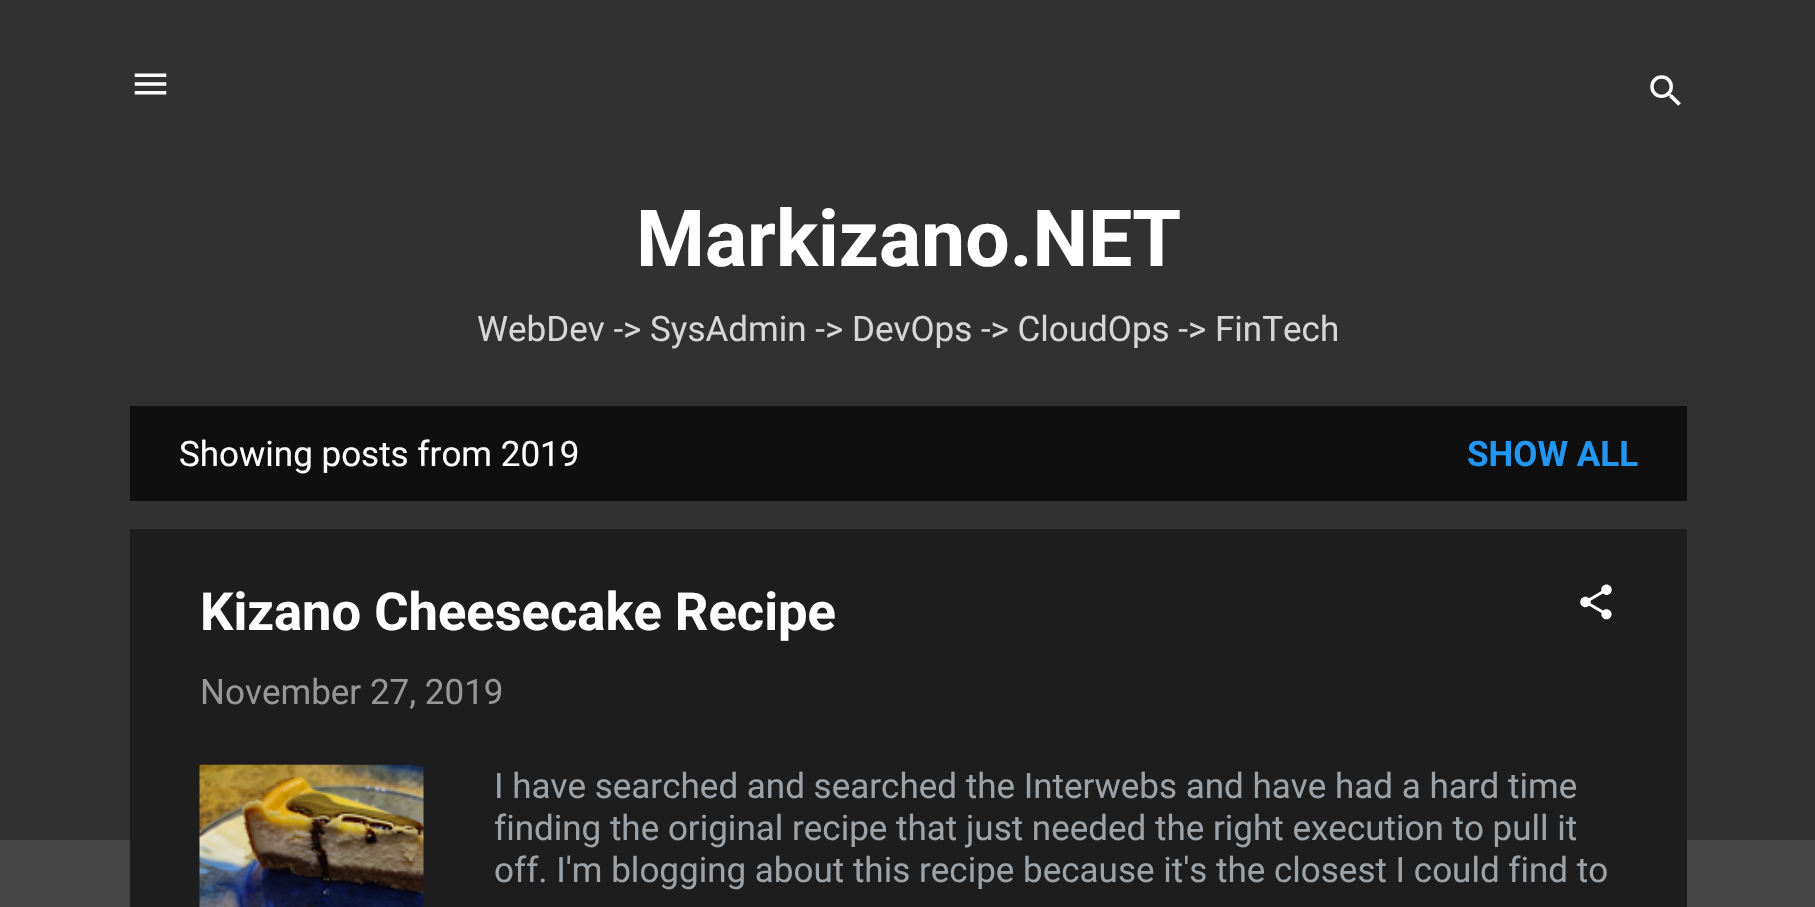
#include "include/core/SkBlurTypes.h"
#include "include/core/SkCanvas.h"
#include "include/core/SkData.h"
#include "include/core/SkFont.h"
#include "include/core/SkFontMgr.h"
#include "include/core/SkImage.h"
#include "include/core/SkMaskFilter.h"
#include "include/core/SkPaint.h"
#include "include/core/SkPathBuilder.h"
#include "include/core/SkTextBlob.h"
#include "include/effects/SkDashPathEffect.h"
#include "include/effects/SkGradientShader.h"
#include "include/utils/SkParsePath.h"

extern sk_sp<SkFontMgr> fontMgr;

void draw(SkCanvas* canvas) {
  SkPaint p;
  p.setAntiAlias(true);
  canvas->clear(SkColorSetRGB(68, 68, 68));
  p.setColor(SkColorSetRGB(49, 49, 49));
  canvas->drawRect(SkRect::MakeLTRB(0, 0, 1815, 840), p);
  canvas->drawImageRect(SkImages::DeferredFromEncodedData(SkData::MakeFromFileName("images/1.png")), SkRect::MakeLTRB(134, 73, 167, 95), SkSamplingOptions());
  canvas->drawImageRect(SkImages::DeferredFromEncodedData(SkData::MakeFromFileName("images/2.png")), SkRect::MakeLTRB(1650, 75, 1681, 106), SkSamplingOptions());
  p.setColor(SkColorSetRGB(15, 15, 15));
  canvas->drawRect(SkRect::MakeLTRB(130, 406, 1687, 501), p);
  p.setColor(SkColorSetRGB(29, 29, 29));
  canvas->drawRect(SkRect::MakeLTRB(130, 529, 1687, 907), p);
  canvas->drawImageRect(SkImages::DeferredFromEncodedData(SkData::MakeFromFileName("images/3.png")), SkRect::MakeLTRB(1580, 584, 1612, 620), SkSamplingOptions());
  canvas->drawImageRect(SkImages::DeferredFromEncodedData(SkData::MakeFromFileName("images/4.png")), SkRect::MakeLTRB(199, 764, 424, 907), SkSamplingOptions());
  SkFont font1(fontMgr->matchFamilyStyle("Roboto", SkFontStyle::Bold()), 78.75f);
  font1.setSubpixel(true);
  p.setColor(SK_ColorWHITE);
  canvas->drawString("Markizano.NET", 636, 266, font1, p);
  SkFont font2(fontMgr->matchFamilyStyle("Roboto", SkFontStyle::Normal()), 35);
  font2.setSubpixel(true);
  p.setColor(SkColorSetRGB(214, 214, 214));
  canvas->drawString("WebDev -> SysAdmin -> DevOps -> CloudOps -> FinTech", 477, 341, font2, p);
  p.setColor(SK_ColorWHITE);
  canvas->drawString("Showing posts from 2019", 179, 466, font2, p);
  SkFont font3(fontMgr->matchFamilyStyle("Roboto", SkFontStyle::Bold()), 35);
  font3.setSubpixel(true);
  p.setColor(SkColorSetRGB(33, 150, 243));
  canvas->drawString("SHOW ALL", 1467, 466, font3, p);
  SkFont font4(fontMgr->matchFamilyStyle("Roboto", SkFontStyle::Bold()), 52.5f);
  font4.setSubpixel(true);
  p.setColor(SK_ColorWHITE);
  canvas->drawString("Kizano Cheesecake Recipe", 200, 630, font4, p);
  p.setColor(SkColorSetRGB(151, 151, 151));
  canvas->drawString("November 27, 2019", 200, 704, font2, p);
  p.setColor(SkColorSetRGB(155, 162, 168));
  canvas->drawString("I have searched and searched the Interwebs and have had a hard time", 494, 798, font2, p);
  canvas->drawString("finding the original recipe that just needed the right execution to pull it", 494, 840, font2, p);
  canvas->drawString("off. I'm blogging about this recipe because it's the closest I could find to", 494, 882, font2, p);
}
